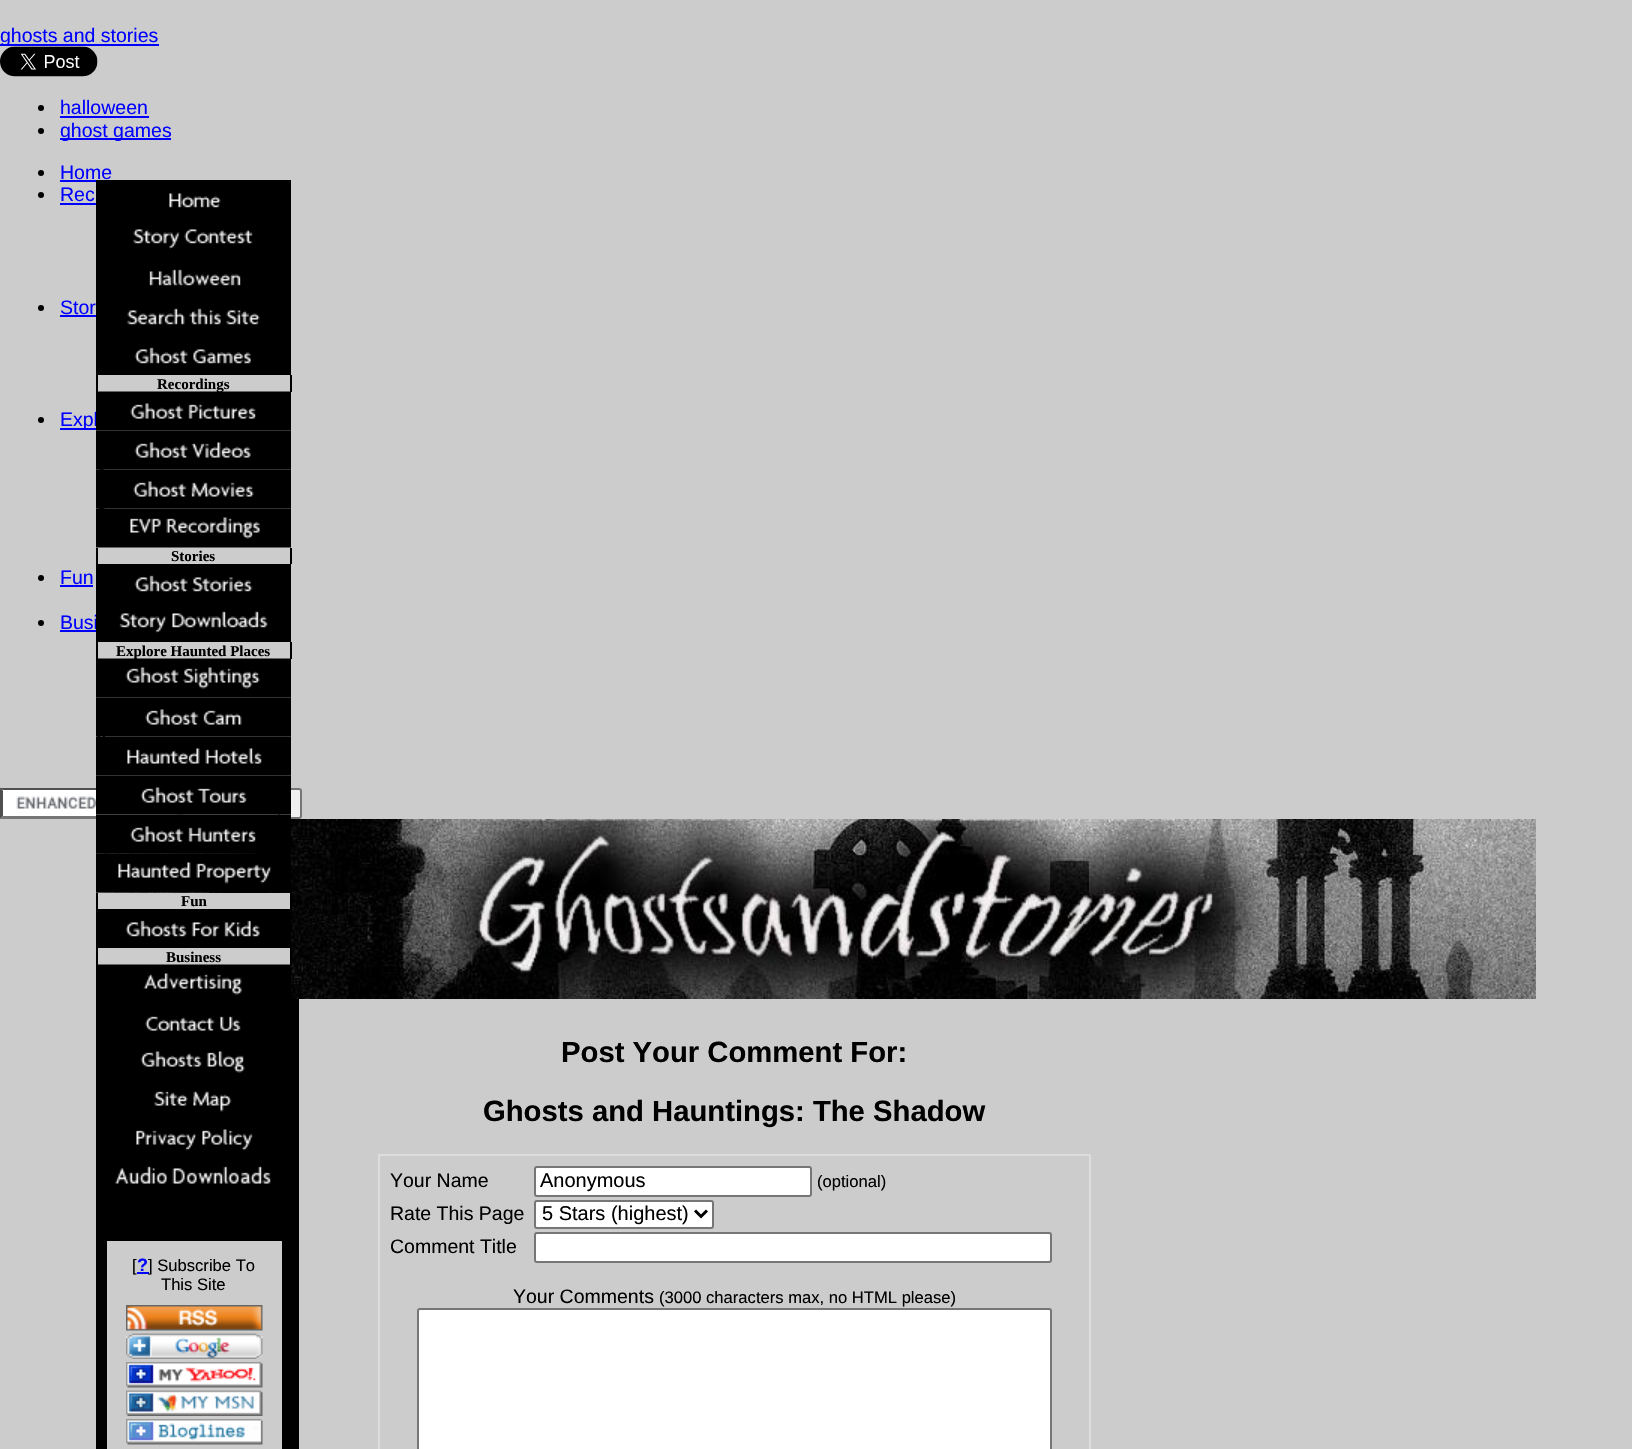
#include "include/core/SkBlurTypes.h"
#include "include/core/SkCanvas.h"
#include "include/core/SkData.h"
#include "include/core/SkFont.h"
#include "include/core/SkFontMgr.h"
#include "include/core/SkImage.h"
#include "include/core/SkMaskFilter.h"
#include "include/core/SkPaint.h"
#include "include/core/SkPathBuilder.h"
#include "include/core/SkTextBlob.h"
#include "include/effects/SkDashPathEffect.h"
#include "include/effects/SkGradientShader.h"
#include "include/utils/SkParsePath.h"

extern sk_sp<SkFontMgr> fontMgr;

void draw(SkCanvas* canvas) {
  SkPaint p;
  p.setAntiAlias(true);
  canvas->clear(SkColorSetRGB(204, 204, 204));
  p.setColor(SkColorSetRGB(0, 0, 255));
  canvas->drawRect(SkRect::MakeLTRB(0, 44, 159, 46), p);
  p.setColor(SK_ColorBLACK);
  canvas->drawCircle(41, 108, 3, p);
  p.setColor(SkColorSetRGB(0, 0, 255));
  canvas->drawRect(SkRect::MakeLTRB(60, 116, 149, 118), p);
  p.setColor(SK_ColorBLACK);
  canvas->drawCircle(41, 131, 3, p);
  p.setColor(SkColorSetRGB(0, 0, 255));
  canvas->drawRect(SkRect::MakeLTRB(60, 138, 171, 140), p);
  p.setColor(SK_ColorBLACK);
  canvas->drawCircle(41, 173, 3, p);
  p.setColor(SkColorSetRGB(0, 0, 255));
  canvas->drawRect(SkRect::MakeLTRB(60, 180, 96, 182), p);
  p.setColor(SK_ColorBLACK);
  canvas->drawCircle(41, 195, 3, p);
  p.setColor(SkColorSetRGB(0, 0, 255));
  canvas->drawRect(SkRect::MakeLTRB(60, 203, 96, 205), p);
  p.setColor(SK_ColorBLACK);
  canvas->drawCircle(41, 308, 3, p);
  p.setColor(SkColorSetRGB(0, 0, 255));
  canvas->drawRect(SkRect::MakeLTRB(60, 315, 96, 317), p);
  p.setColor(SK_ColorBLACK);
  canvas->drawCircle(41, 420, 3, p);
  p.setColor(SkColorSetRGB(0, 0, 255));
  canvas->drawRect(SkRect::MakeLTRB(60, 428, 96, 430), p);
  p.setStyle(SkPaint::kStroke_Style);
  p.setStrokeWidth(2);
  p.setColor(SK_ColorBLACK);
  canvas->drawRoundRect(SkRect::MakeLTRB(99, 463, 104, 469), 2.5f, 2.5f, p);
  canvas->drawRoundRect(SkRect::MakeLTRB(99, 508, 104, 514), 2.5f, 2.5f, p);
  p.setStyle(SkPaint::kFill_Style);
  canvas->drawCircle(41, 578, 3, p);
  p.setColor(SkColorSetRGB(0, 0, 255));
  canvas->drawRect(SkRect::MakeLTRB(60, 585, 93, 587), p);
  p.setColor(SK_ColorBLACK);
  canvas->drawCircle(41, 623, 3, p);
  p.setColor(SkColorSetRGB(0, 0, 255));
  canvas->drawRect(SkRect::MakeLTRB(60, 630, 96, 632), p);
  p.setStyle(SkPaint::kStroke_Style);
  p.setColor(SK_ColorBLACK);
  canvas->drawRect(SkRect::MakeLTRB(99, 733, 104, 739), p);
  p.setStyle(SkPaint::kFill_Style);
  p.setColor(SK_ColorWHITE);
  canvas->drawRect(SkRect::MakeLTRB(0, 788, 278, 819), p);
  canvas->drawImageRect(SkImages::DeferredFromEncodedData(SkData::MakeFromFileName("images/2.png")), SkRect::MakeLTRB(16, 796, 184, 815), SkSamplingOptions());
  p.setColor(SkColorSetRGB(79, 79, 79));
  canvas->drawPath(SkPathBuilder().moveTo(0, 788).lineTo(278, 788).lineTo(274, 790).lineTo(3, 790).close().detach(), p);
  p.setColor(SkColorSetRGB(118, 118, 118));
  canvas->drawPath(SkPathBuilder().moveTo(278, 819).lineTo(0, 819).lineTo(3, 816).lineTo(274, 816).close().detach(), p);
  p.setColor(SkColorSetRGB(79, 79, 79));
  canvas->drawPath(SkPathBuilder().moveTo(0, 819).lineTo(0, 787.5f).lineTo(3, 790.5f).lineTo(3, 816).close().detach(), p);
  p.setColor(SkColorSetRGB(239, 239, 239));
  canvas->drawRoundRect(SkRect::MakeLTRB(279, 789, 301, 818), 2, 2, p);
  p.setStyle(SkPaint::kStroke_Style);
  p.setColor(SkColorSetRGB(118, 118, 118));
  canvas->drawRoundRect(SkRect::MakeLTRB(279, 789, 301, 818), 2, 2, p);
  p.setStyle(SkPaint::kFill_Style);
  p.setColor(SK_ColorBLACK);
  canvas->drawRect(SkRect::MakeLTRB(96, 999, 299, 1449), p);
  canvas->drawImageRect(SkImages::DeferredFromEncodedData(SkData::MakeFromFileName("images/3.png")), SkRect::MakeLTRB(96, 180, 291, 219), SkSamplingOptions());
  canvas->drawImageRect(SkImages::DeferredFromEncodedData(SkData::MakeFromFileName("images/4.png")), SkRect::MakeLTRB(96, 219, 291, 258), SkSamplingOptions());
  canvas->drawImageRect(SkImages::DeferredFromEncodedData(SkData::MakeFromFileName("images/5.png")), SkRect::MakeLTRB(96, 258, 291, 297), SkSamplingOptions());
  canvas->drawImageRect(SkImages::DeferredFromEncodedData(SkData::MakeFromFileName("images/6.png")), SkRect::MakeLTRB(96, 297, 291, 336), SkSamplingOptions());
  canvas->drawImageRect(SkImages::DeferredFromEncodedData(SkData::MakeFromFileName("images/7.png")), SkRect::MakeLTRB(96, 336, 291, 375), SkSamplingOptions());
  canvas->drawRect(SkRect::MakeLTRB(290, 375, 292, 392), p);
  canvas->drawRect(SkRect::MakeLTRB(96, 375, 98, 392), p);
  canvas->drawRect(SkRect::MakeLTRB(290, 548, 292, 564), p);
  canvas->drawRect(SkRect::MakeLTRB(96, 548, 98, 564), p);
  canvas->drawImageRect(SkImages::DeferredFromEncodedData(SkData::MakeFromFileName("images/12.png")), SkRect::MakeLTRB(96, 564, 291, 603), SkSamplingOptions());
  canvas->drawRect(SkRect::MakeLTRB(290, 642, 292, 659), p);
  canvas->drawRect(SkRect::MakeLTRB(96, 642, 98, 659), p);
  canvas->drawImageRect(SkImages::DeferredFromEncodedData(SkData::MakeFromFileName("images/32.png")), SkRect::MakeLTRB(96, 819, 1536, 999), SkSamplingOptions());
  p.setColor(SkColorSetRGB(204, 204, 204));
  canvas->drawRect(SkRect::MakeLTRB(98, 893, 290, 909), p);
  p.setColor(SK_ColorBLACK);
  canvas->drawRect(SkRect::MakeLTRB(290, 893, 292, 909), p);
  canvas->drawRect(SkRect::MakeLTRB(96, 893, 98, 909), p);
  canvas->drawImageRect(SkImages::DeferredFromEncodedData(SkData::MakeFromFileName("images/20.png")), SkRect::MakeLTRB(96, 909, 291, 948), SkSamplingOptions());
  p.setColor(SkColorSetRGB(204, 204, 204));
  canvas->drawRect(SkRect::MakeLTRB(98, 948, 290, 965), p);
  p.setColor(SK_ColorBLACK);
  canvas->drawRect(SkRect::MakeLTRB(290, 948, 292, 965), p);
  canvas->drawRect(SkRect::MakeLTRB(96, 948, 98, 965), p);
  canvas->drawImageRect(SkImages::DeferredFromEncodedData(SkData::MakeFromFileName("images/21.png")), SkRect::MakeLTRB(96, 964, 291, 999), SkSamplingOptions());
  canvas->drawImageRect(SkImages::DeferredFromEncodedData(SkData::MakeFromFileName("images/22.png")), SkRect::MakeLTRB(145, 1016, 241, 1031), SkSamplingOptions());
  canvas->drawImageRect(SkImages::DeferredFromEncodedData(SkData::MakeFromFileName("images/23.png")), SkRect::MakeLTRB(140, 1051, 245, 1073), SkSamplingOptions());
  canvas->drawImageRect(SkImages::DeferredFromEncodedData(SkData::MakeFromFileName("images/24.png")), SkRect::MakeLTRB(154, 1091, 232, 1112), SkSamplingOptions());
  canvas->drawImageRect(SkImages::DeferredFromEncodedData(SkData::MakeFromFileName("images/25.png")), SkRect::MakeLTRB(136, 1129, 253, 1151), SkSamplingOptions());
  canvas->drawImageRect(SkImages::DeferredFromEncodedData(SkData::MakeFromFileName("images/26.png")), SkRect::MakeLTRB(115, 1166, 271, 1184), SkSamplingOptions());
  p.setColor(SkColorSetRGB(204, 204, 204));
  canvas->drawRect(SkRect::MakeLTRB(107, 1241, 282, 1449), p);
  p.setColor(SkColorSetRGB(0, 0, 255));
  canvas->drawRect(SkRect::MakeLTRB(137, 1272, 149, 1274), p);
  canvas->drawImageRect(SkImages::DeferredFromEncodedData(SkData::MakeFromFileName("images/27.png")), SkRect::MakeLTRB(126, 1305, 263, 1331), SkSamplingOptions());
  canvas->drawImageRect(SkImages::DeferredFromEncodedData(SkData::MakeFromFileName("images/28.png")), SkRect::MakeLTRB(126, 1333, 263, 1359), SkSamplingOptions());
  canvas->drawImageRect(SkImages::DeferredFromEncodedData(SkData::MakeFromFileName("images/29.png")), SkRect::MakeLTRB(126, 1362, 263, 1388), SkSamplingOptions());
  canvas->drawImageRect(SkImages::DeferredFromEncodedData(SkData::MakeFromFileName("images/30.png")), SkRect::MakeLTRB(126, 1390, 263, 1416), SkSamplingOptions());
  canvas->drawImageRect(SkImages::DeferredFromEncodedData(SkData::MakeFromFileName("images/31.png")), SkRect::MakeLTRB(126, 1419, 263, 1445), SkSamplingOptions());
  p.setStyle(SkPaint::kStroke_Style);
  p.setColor(SkColorSetRGB(221, 221, 221));
  canvas->drawRect(SkRect::MakeLTRB(379, 1155, 1090, 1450), p);
  p.setStyle(SkPaint::kFill_Style);
  p.setColor(SK_ColorWHITE);
  canvas->drawRoundRect(SkRect::MakeLTRB(535, 1167, 811, 1196), 2, 2, p);
  p.setStyle(SkPaint::kStroke_Style);
  p.setColor(SkColorSetRGB(118, 118, 118));
  canvas->drawRoundRect(SkRect::MakeLTRB(535, 1167, 811, 1196), 2, 2, p);
  p.setStyle(SkPaint::kFill_Style);
  p.setColor(SK_ColorWHITE);
  canvas->drawRoundRect(SkRect::MakeLTRB(535, 1201, 713, 1228), 2, 2, p);
  p.setStyle(SkPaint::kStroke_Style);
  p.setColor(SkColorSetRGB(118, 118, 118));
  canvas->drawRoundRect(SkRect::MakeLTRB(535, 1201, 713, 1228), 2, 2, p);
  p.setStrokeWidth(3);
  p.setColor(SK_ColorBLACK);
  canvas->drawPath(SkPathBuilder().moveTo(695, 1210.5f).lineTo(701, 1216.5f).lineTo(707, 1210.5f).detach(), p);
  p.setStyle(SkPaint::kFill_Style);
  p.setColor(SK_ColorWHITE);
  canvas->drawRoundRect(SkRect::MakeLTRB(535, 1233, 1051, 1262), 2, 2, p);
  p.setStyle(SkPaint::kStroke_Style);
  p.setStrokeWidth(2);
  p.setColor(SkColorSetRGB(118, 118, 118));
  canvas->drawRoundRect(SkRect::MakeLTRB(535, 1233, 1051, 1262), 2, 2, p);
  p.setStyle(SkPaint::kFill_Style);
  p.setColor(SK_ColorWHITE);
  canvas->drawRoundRect(SkRect::MakeLTRB(418, 1309, 1051, 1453), 2, 2, p);
  p.setStyle(SkPaint::kStroke_Style);
  p.setColor(SkColorSetRGB(118, 118, 118));
  canvas->drawRoundRect(SkRect::MakeLTRB(418, 1309, 1051, 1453), 2, 2, p);
  SkFont font1(fontMgr->matchFamilyStyle("Liberation Sans", SkFontStyle::Normal()), 19.5f);
  font1.setSubpixel(true);
  p.setStyle(SkPaint::kFill_Style);
  p.setColor(SkColorSetRGB(0, 0, 255));
  canvas->drawString("ghosts and stories", 0, 42, font1, p);
  canvas->drawImageRect(SkImages::DeferredFromEncodedData(SkData::MakeFromFileName("images/1.png")), SkRect::MakeLTRB(0, 46, 98, 77), SkSamplingOptions());
  canvas->drawString("halloween", 60, 114, font1, p);
  canvas->drawString("ghost games", 60, 137, font1, p);
  canvas->drawString("Home", 60, 179, font1, p);
  canvas->drawString("Rec", 60, 201, font1, p);
  canvas->drawString("Stor", 60, 314, font1, p);
  canvas->drawString("Expl", 60, 426, font1, p);
  canvas->drawString("Fun", 60, 584, font1, p);
  canvas->drawString("Busi", 60, 629, font1, p);
  SkFont font2(fontMgr->matchFamilyStyle("Liberation Serif", SkFontStyle::Bold()), 15);
  font2.setSubpixel(true);
  p.setColor(SK_ColorBLACK);
  canvas->drawString("Recordings", 157, 389, font2, p);
  canvas->drawImageRect(SkImages::DeferredFromEncodedData(SkData::MakeFromFileName("images/8.png")), SkRect::MakeLTRB(96, 391, 291, 431), SkSamplingOptions());
  canvas->drawImageRect(SkImages::DeferredFromEncodedData(SkData::MakeFromFileName("images/9.png")), SkRect::MakeLTRB(96, 430, 291, 470), SkSamplingOptions());
  canvas->drawImageRect(SkImages::DeferredFromEncodedData(SkData::MakeFromFileName("images/10.png")), SkRect::MakeLTRB(96, 469, 291, 509), SkSamplingOptions());
  canvas->drawImageRect(SkImages::DeferredFromEncodedData(SkData::MakeFromFileName("images/11.png")), SkRect::MakeLTRB(96, 508, 291, 548), SkSamplingOptions());
  canvas->drawString("Stories", 171, 561, font2, p);
  canvas->drawImageRect(SkImages::DeferredFromEncodedData(SkData::MakeFromFileName("images/13.png")), SkRect::MakeLTRB(96, 603, 291, 642), SkSamplingOptions());
  canvas->drawString("Explore Haunted Places", 116, 656, font2, p);
  canvas->drawImageRect(SkImages::DeferredFromEncodedData(SkData::MakeFromFileName("images/14.png")), SkRect::MakeLTRB(96, 658, 291, 698), SkSamplingOptions());
  canvas->drawImageRect(SkImages::DeferredFromEncodedData(SkData::MakeFromFileName("images/15.png")), SkRect::MakeLTRB(96, 697, 291, 737), SkSamplingOptions());
  canvas->drawImageRect(SkImages::DeferredFromEncodedData(SkData::MakeFromFileName("images/16.png")), SkRect::MakeLTRB(96, 736, 291, 776), SkSamplingOptions());
  canvas->drawImageRect(SkImages::DeferredFromEncodedData(SkData::MakeFromFileName("images/17.png")), SkRect::MakeLTRB(96, 775, 291, 815), SkSamplingOptions());
  canvas->drawImageRect(SkImages::DeferredFromEncodedData(SkData::MakeFromFileName("images/18.png")), SkRect::MakeLTRB(96, 814, 291, 854), SkSamplingOptions());
  canvas->drawImageRect(SkImages::DeferredFromEncodedData(SkData::MakeFromFileName("images/19.png")), SkRect::MakeLTRB(96, 853, 291, 893), SkSamplingOptions());
  canvas->drawString("Fun", 181, 906, font2, p);
  canvas->drawString("Business", 166, 962, font2, p);
  SkFont font3(fontMgr->matchFamilyStyle("Liberation Sans", SkFontStyle::Normal()), 16.6f);
  font3.setSubpixel(true);
  canvas->drawString("[", 132, 1271, font3, p);
  SkFont font4(fontMgr->matchFamilyStyle("Liberation Sans", SkFontStyle::Bold()), 18);
  font4.setSubpixel(true);
  p.setColor(SkColorSetRGB(0, 0, 255));
  canvas->drawString("?", 137, 1271, font4, p);
  p.setColor(SK_ColorBLACK);
  canvas->drawString("] Subscribe To", 148, 1271, font3, p);
  canvas->drawString("This Site", 161, 1290, font3, p);
  SkFont font5(fontMgr->matchFamilyStyle("Liberation Sans", SkFontStyle::Bold()), 29.25f);
  font5.setSubpixel(true);
  canvas->drawString("Post Your Comment For:", 561, 1062, font5, p);
  canvas->drawString("Ghosts and Hauntings: The Shadow", 483, 1121, font5, p);
  canvas->drawString("Your Name", 390, 1187, font1, p);
  SkFont font6(fontMgr->matchFamilyStyle("Liberation Sans", SkFontStyle::Normal()), 20);
  font6.setSubpixel(true);
  canvas->drawString("Anonymous", 540, 1187, font6, p);
  canvas->drawString("(optional)", 817, 1187, font3, p);
  canvas->drawString("Rate This Page", 390, 1220, font1, p);
  canvas->drawString("5 Stars (highest)", 542, 1220, font6, p);
  canvas->drawString("Comment Title", 390, 1253, font1, p);
  canvas->drawString("Your Comments", 513, 1303, font1, p);
  canvas->drawString("(3000 characters max, no HTML please)", 659, 1303, font3, p);
}
